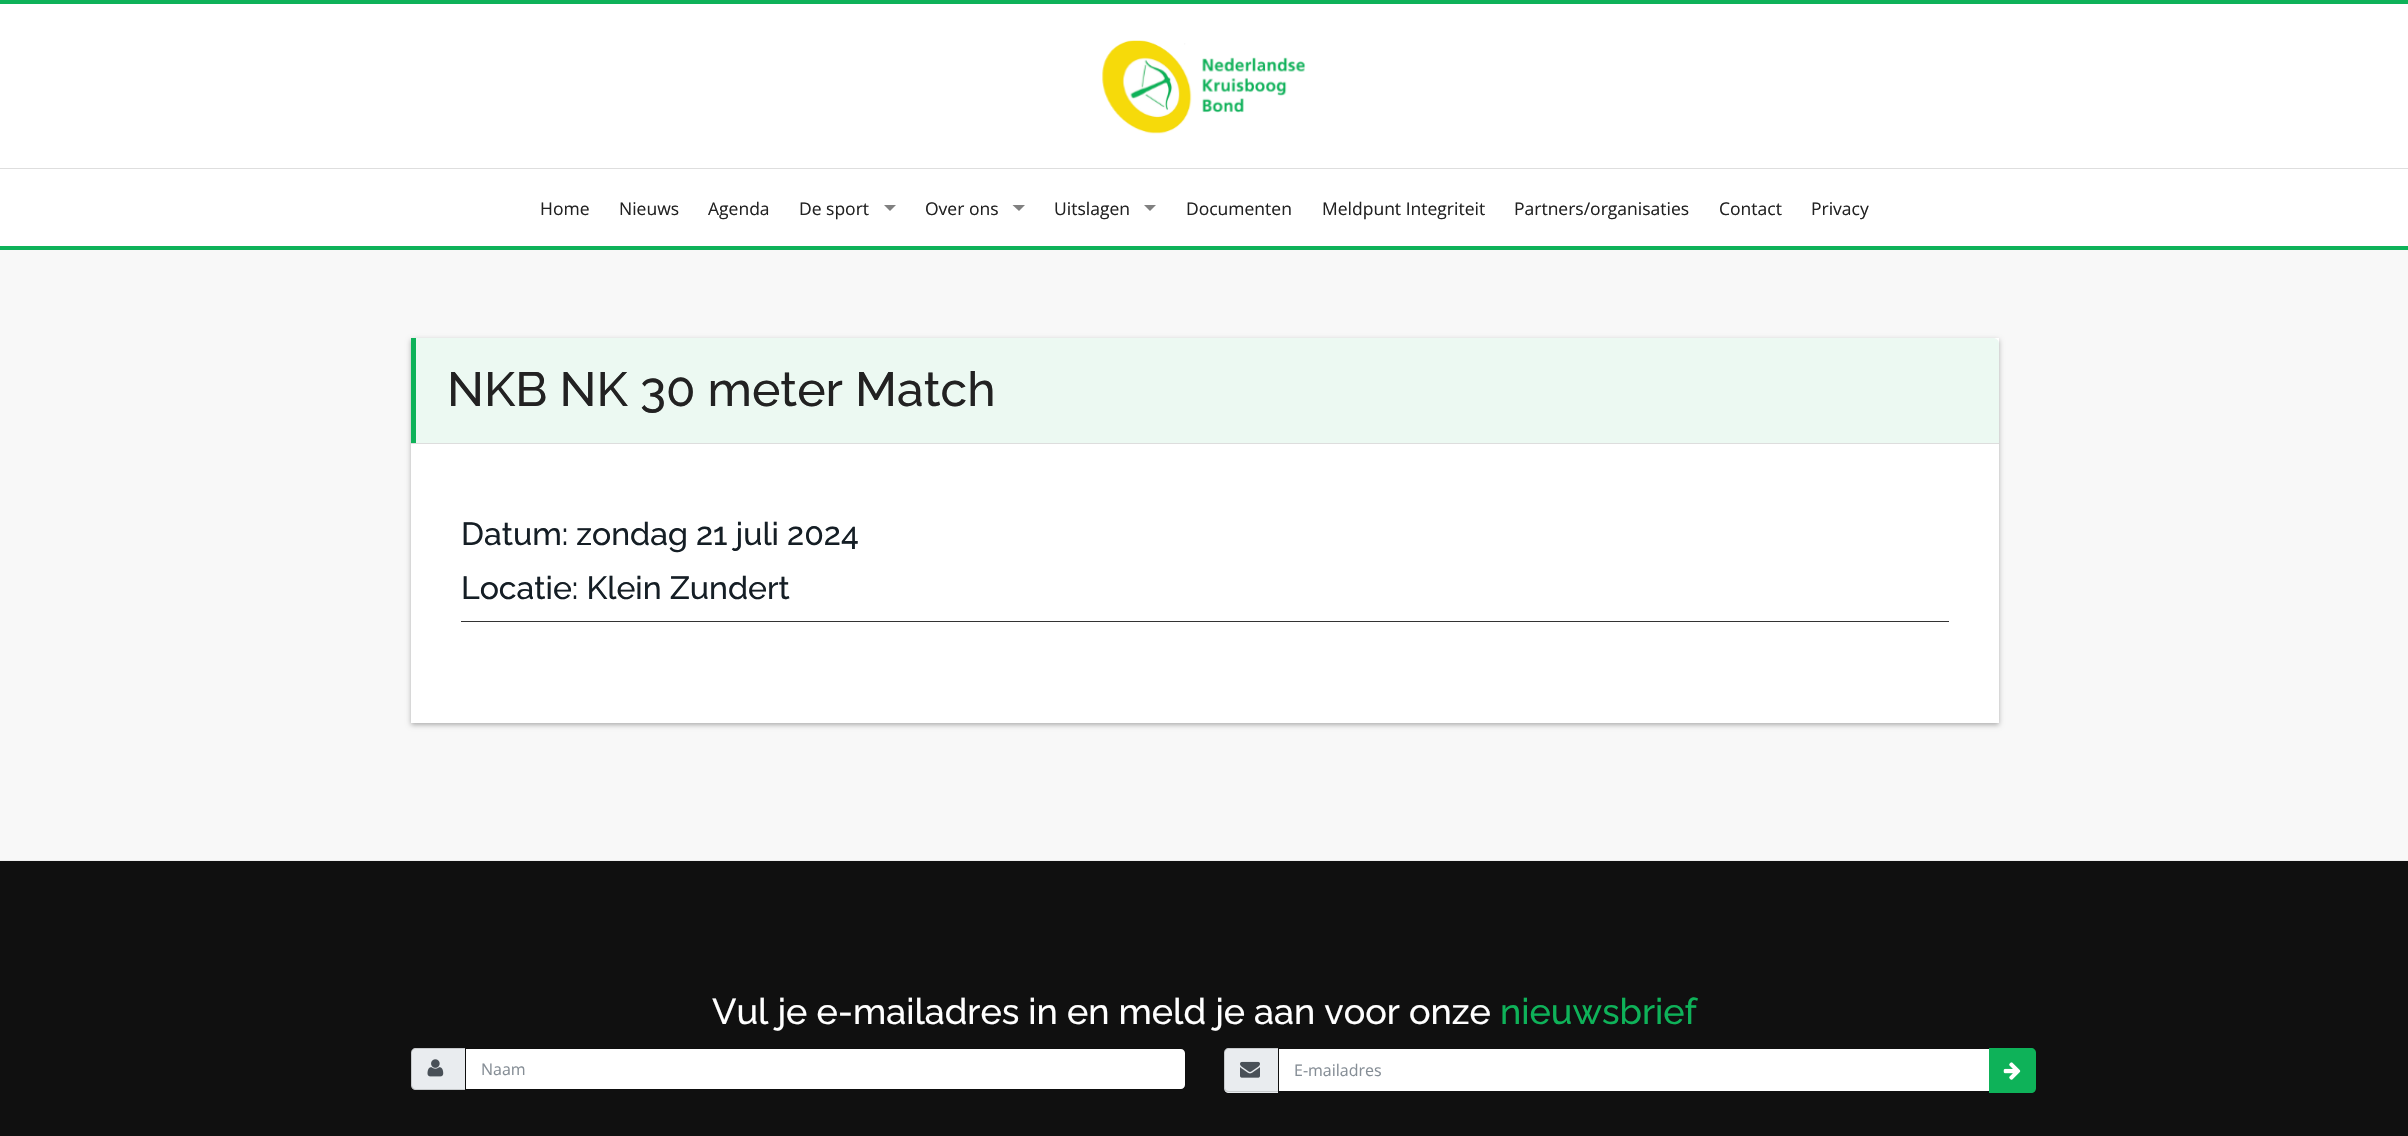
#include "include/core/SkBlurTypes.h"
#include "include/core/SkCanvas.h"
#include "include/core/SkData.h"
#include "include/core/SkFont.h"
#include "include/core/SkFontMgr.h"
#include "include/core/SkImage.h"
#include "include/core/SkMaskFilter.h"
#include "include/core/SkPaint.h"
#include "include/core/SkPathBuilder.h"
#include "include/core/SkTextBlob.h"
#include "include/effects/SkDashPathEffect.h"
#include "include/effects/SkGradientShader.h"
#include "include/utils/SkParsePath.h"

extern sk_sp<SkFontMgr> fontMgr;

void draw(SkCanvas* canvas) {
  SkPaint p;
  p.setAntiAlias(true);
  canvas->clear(SkColorSetRGB(248, 248, 248));
  p.setColor(SK_ColorWHITE);
  canvas->drawRect(SkRect::MakeLTRB(0, 4, 2408, 246), p);
  p.setColor(SkColorSetRGB(14, 178, 89));
  canvas->drawRect(SkRect::MakeLTRB(0, 0, 2408, 4), p);
  canvas->drawImageRect(SkImages::DeferredFromEncodedData(SkData::MakeFromFileName("images/1.png")), SkRect::MakeLTRB(1102, 40, 1306, 134), SkSamplingOptions());
  p.setColor(SkColorSetRGB(222, 222, 222));
  canvas->drawRect(SkRect::MakeLTRB(0, 168, 2408, 169), p);
  p.setColor(SkColorSetRGB(14, 178, 89));
  canvas->drawRect(SkRect::MakeLTRB(0, 246, 2408, 250), p);
  p.setColor(SkColorSetRGB(128, 128, 128));
  canvas->drawPath(SkPathBuilder().moveTo(884, 205).lineTo(896, 205).lineTo(890, 211).close().detach(), p);
  canvas->drawPath(SkPathBuilder().moveTo(1012.5f, 205).lineTo(1025, 205).lineTo(1019, 211).close().detach(), p);
  canvas->drawPath(SkPathBuilder().moveTo(1144, 205).lineTo(1156, 205).lineTo(1150, 211).close().detach(), p);
  p.setColor(SkColorSetARGB(77, 0, 0, 0));
  p.setMaskFilter(SkMaskFilter::MakeBlur(kNormal_SkBlurStyle, 2.5f));
  canvas->drawRect(SkRect::MakeLTRB(411, 340, 1999, 725), p);
  p.setMaskFilter(nullptr);
  p.setColor(SK_ColorWHITE);
  canvas->drawRect(SkRect::MakeLTRB(411, 338, 1999, 723), p);
  p.setColor(SkColorSetRGB(236, 249, 242));
  canvas->drawPath(SkPathBuilder().moveTo(417, 338).lineTo(1993, 338).cubicTo(1996.5f, 338, 1999, 340.5f, 1999, 344).lineTo(1999, 444).lineTo(411, 444).lineTo(411, 344).cubicTo(411, 340.5f, 413.5f, 338, 417, 338).close().detach(), p);
  p.setColor(SkColorSetRGB(221, 221, 221));
  canvas->drawRect(SkRect::MakeLTRB(411, 443, 1999, 444), p);
  p.setColor(SkColorSetRGB(14, 178, 89));
  canvas->drawRect(SkRect::MakeLTRB(411, 338, 416, 443), p);
  p.setColor(SkColorSetRGB(51, 51, 51));
  canvas->drawRect(SkRect::MakeLTRB(461, 621, 1949, 622), p);
  p.setColor(SkColorSetRGB(16, 16, 16));
  canvas->drawRect(SkRect::MakeLTRB(0, 861, 2408, 1136), p);
  p.setColor(SkColorSetRGB(238, 238, 238));
  canvas->drawRect(SkRect::MakeLTRB(0, 860, 2408, 861), p);
  p.setColor(SkColorSetRGB(233, 236, 239));
  canvas->drawPath(SkPathBuilder().moveTo(416, 1048).lineTo(465, 1048).lineTo(465, 1090).lineTo(416, 1090).cubicTo(413, 1090, 411, 1088, 411, 1085).lineTo(411, 1053).cubicTo(411, 1050, 413, 1048, 416, 1048).close().detach(), p);
  p.setColor(SkColorSetARGB(38, 0, 0, 0));
  canvas->drawPath(SkPathBuilder(SkPathFillType::kEvenOdd).moveTo(416, 1048).lineTo(465, 1048).lineTo(465, 1090).lineTo(416, 1090).cubicTo(413, 1090, 411, 1088, 411, 1085).lineTo(411, 1052).cubicTo(411, 1050, 413, 1048, 416, 1048).close().moveTo(416, 1049).lineTo(465, 1049).lineTo(465, 1089).lineTo(416, 1089).cubicTo(414, 1089, 412, 1087, 412, 1085).lineTo(412, 1052).cubicTo(412, 1050, 414, 1049, 416, 1049).close().detach(), p);
  canvas->drawImageRect(SkImages::DeferredFromEncodedData(SkData::MakeFromFileName("images/2.png")), SkRect::MakeLTRB(427, 1059, 444, 1077), SkSamplingOptions());
  p.setColor(SK_ColorWHITE);
  canvas->drawPath(SkPathBuilder().moveTo(466, 1049).lineTo(1181, 1049).cubicTo(1183, 1049, 1185, 1051, 1185, 1053).lineTo(1185, 1085).cubicTo(1185, 1087, 1183, 1089, 1181, 1089).lineTo(466, 1089).close().detach(), p);
  p.setStyle(SkPaint::kStroke_Style);
  p.setStrokeWidth(1);
  p.setColor(SkColorSetARGB(38, 0, 0, 0));
  canvas->drawPath(SkPathBuilder().moveTo(465.5f, 1048.5f).lineTo(1181, 1048.5f).cubicTo(1183.5f, 1048.5f, 1185.5f, 1050.5f, 1185.5f, 1053).lineTo(1185.5f, 1085).cubicTo(1185.5f, 1087.5f, 1183.5f, 1089.5f, 1181, 1089.5f).lineTo(465.5f, 1089.5f).close().detach(), p);
  p.setStyle(SkPaint::kFill_Style);
  p.setColor(SkColorSetRGB(233, 236, 239));
  canvas->drawPath(SkPathBuilder().moveTo(1229, 1048).lineTo(1278, 1048).lineTo(1278, 1093).lineTo(1229, 1093).cubicTo(1226, 1093, 1224, 1091, 1224, 1088).lineTo(1224, 1053).cubicTo(1224, 1050, 1226, 1048, 1229, 1048).close().detach(), p);
  p.setColor(SkColorSetARGB(38, 0, 0, 0));
  canvas->drawPath(SkPathBuilder(SkPathFillType::kEvenOdd).moveTo(1229, 1048).lineTo(1278, 1048).lineTo(1278, 1092).lineTo(1229, 1092).cubicTo(1226, 1092, 1224, 1090, 1224, 1088).lineTo(1224, 1052).cubicTo(1224, 1050, 1226, 1048, 1229, 1048).close().moveTo(1229, 1049).lineTo(1278, 1049).lineTo(1278, 1091).lineTo(1229, 1091).cubicTo(1227, 1091, 1225, 1090, 1225, 1088).lineTo(1225, 1052).cubicTo(1225, 1050, 1227, 1049, 1229, 1049).close().detach(), p);
  canvas->drawImageRect(SkImages::DeferredFromEncodedData(SkData::MakeFromFileName("images/3.png")), SkRect::MakeLTRB(1240, 1061, 1260, 1078), SkSamplingOptions());
  p.setColor(SK_ColorWHITE);
  canvas->drawRect(SkRect::MakeLTRB(1279, 1049, 1989, 1091), p);
  p.setColor(SkColorSetRGB(14, 178, 89));
  canvas->drawPath(SkPathBuilder().moveTo(1989, 1048).lineTo(2031, 1048).cubicTo(2034, 1048, 2036, 1050, 2036, 1053).lineTo(2036, 1088).cubicTo(2036, 1091, 2034, 1093, 2031, 1093).lineTo(1989, 1093).close().detach(), p);
  canvas->drawImageRect(SkImages::DeferredFromEncodedData(SkData::MakeFromFileName("images/4.png")), SkRect::MakeLTRB(2003, 1062, 2021, 1080), SkSamplingOptions());
  SkFont font1(fontMgr->matchFamilyStyle("Open Sans", SkFontStyle::Normal()), 17.5f);
  font1.setSubpixel(true);
  p.setColor(SkColorSetRGB(34, 34, 34));
  canvas->drawString("Home", 540, 215, font1, p);
  canvas->drawString("Nieuws", 619, 215, font1, p);
  canvas->drawString("Agenda", 708, 215, font1, p);
  canvas->drawString("De sport", 799, 215, font1, p);
  canvas->drawString("Over ons", 925, 215, font1, p);
  canvas->drawString("Uitslagen", 1054, 215, font1, p);
  canvas->drawString("Documenten", 1186, 215, font1, p);
  canvas->drawString("Meldpunt Integriteit", 1322, 215, font1, p);
  canvas->drawString("Partners/organisaties", 1514, 215, font1, p);
  canvas->drawString("Contact", 1719, 215, font1, p);
  canvas->drawString("Privacy", 1811, 215, font1, p);
  SkFont font2(fontMgr->matchFamilyStyle("Raleway", SkFontStyle(500, SkFontStyle::kNormal_Width, SkFontStyle::kUpright_Slant)), 48);
  font2.setSubpixel(true);
  canvas->drawString("NKB NK 30 meter Match", 447, 406, font2, p);
  SkFont font3(fontMgr->matchFamilyStyle("Raleway", SkFontStyle(500, SkFontStyle::kNormal_Width, SkFontStyle::kUpright_Slant)), 32);
  font3.setSubpixel(true);
  p.setColor(SkColorSetRGB(21, 30, 37));
  canvas->drawString("Datum: zondag 21 juli 2024", 461, 545, font3, p);
  canvas->drawString("Locatie: Klein Zundert", 461, 599, font3, p);
  SkFont font4(fontMgr->matchFamilyStyle("Raleway", SkFontStyle(500, SkFontStyle::kNormal_Width, SkFontStyle::kUpright_Slant)), 36);
  font4.setSubpixel(true);
  p.setColor(SK_ColorWHITE);
  canvas->drawString("Vul je e-mailadres in en meld je aan voor onze", 712, 1024, font4, p);
  p.setColor(SkColorSetRGB(14, 178, 89));
  canvas->drawString("nieuwsbrief", 1500, 1024, font4, p);
  SkFont font5(fontMgr->matchFamilyStyle("Open Sans", SkFontStyle::Normal()), 16);
  font5.setSubpixel(true);
  p.setColor(SkColorSetRGB(134, 142, 150));
  canvas->drawString("Naam", 481, 1075, font5, p);
  canvas->drawString("E-mailadres", 1294, 1076, font5, p);
}
